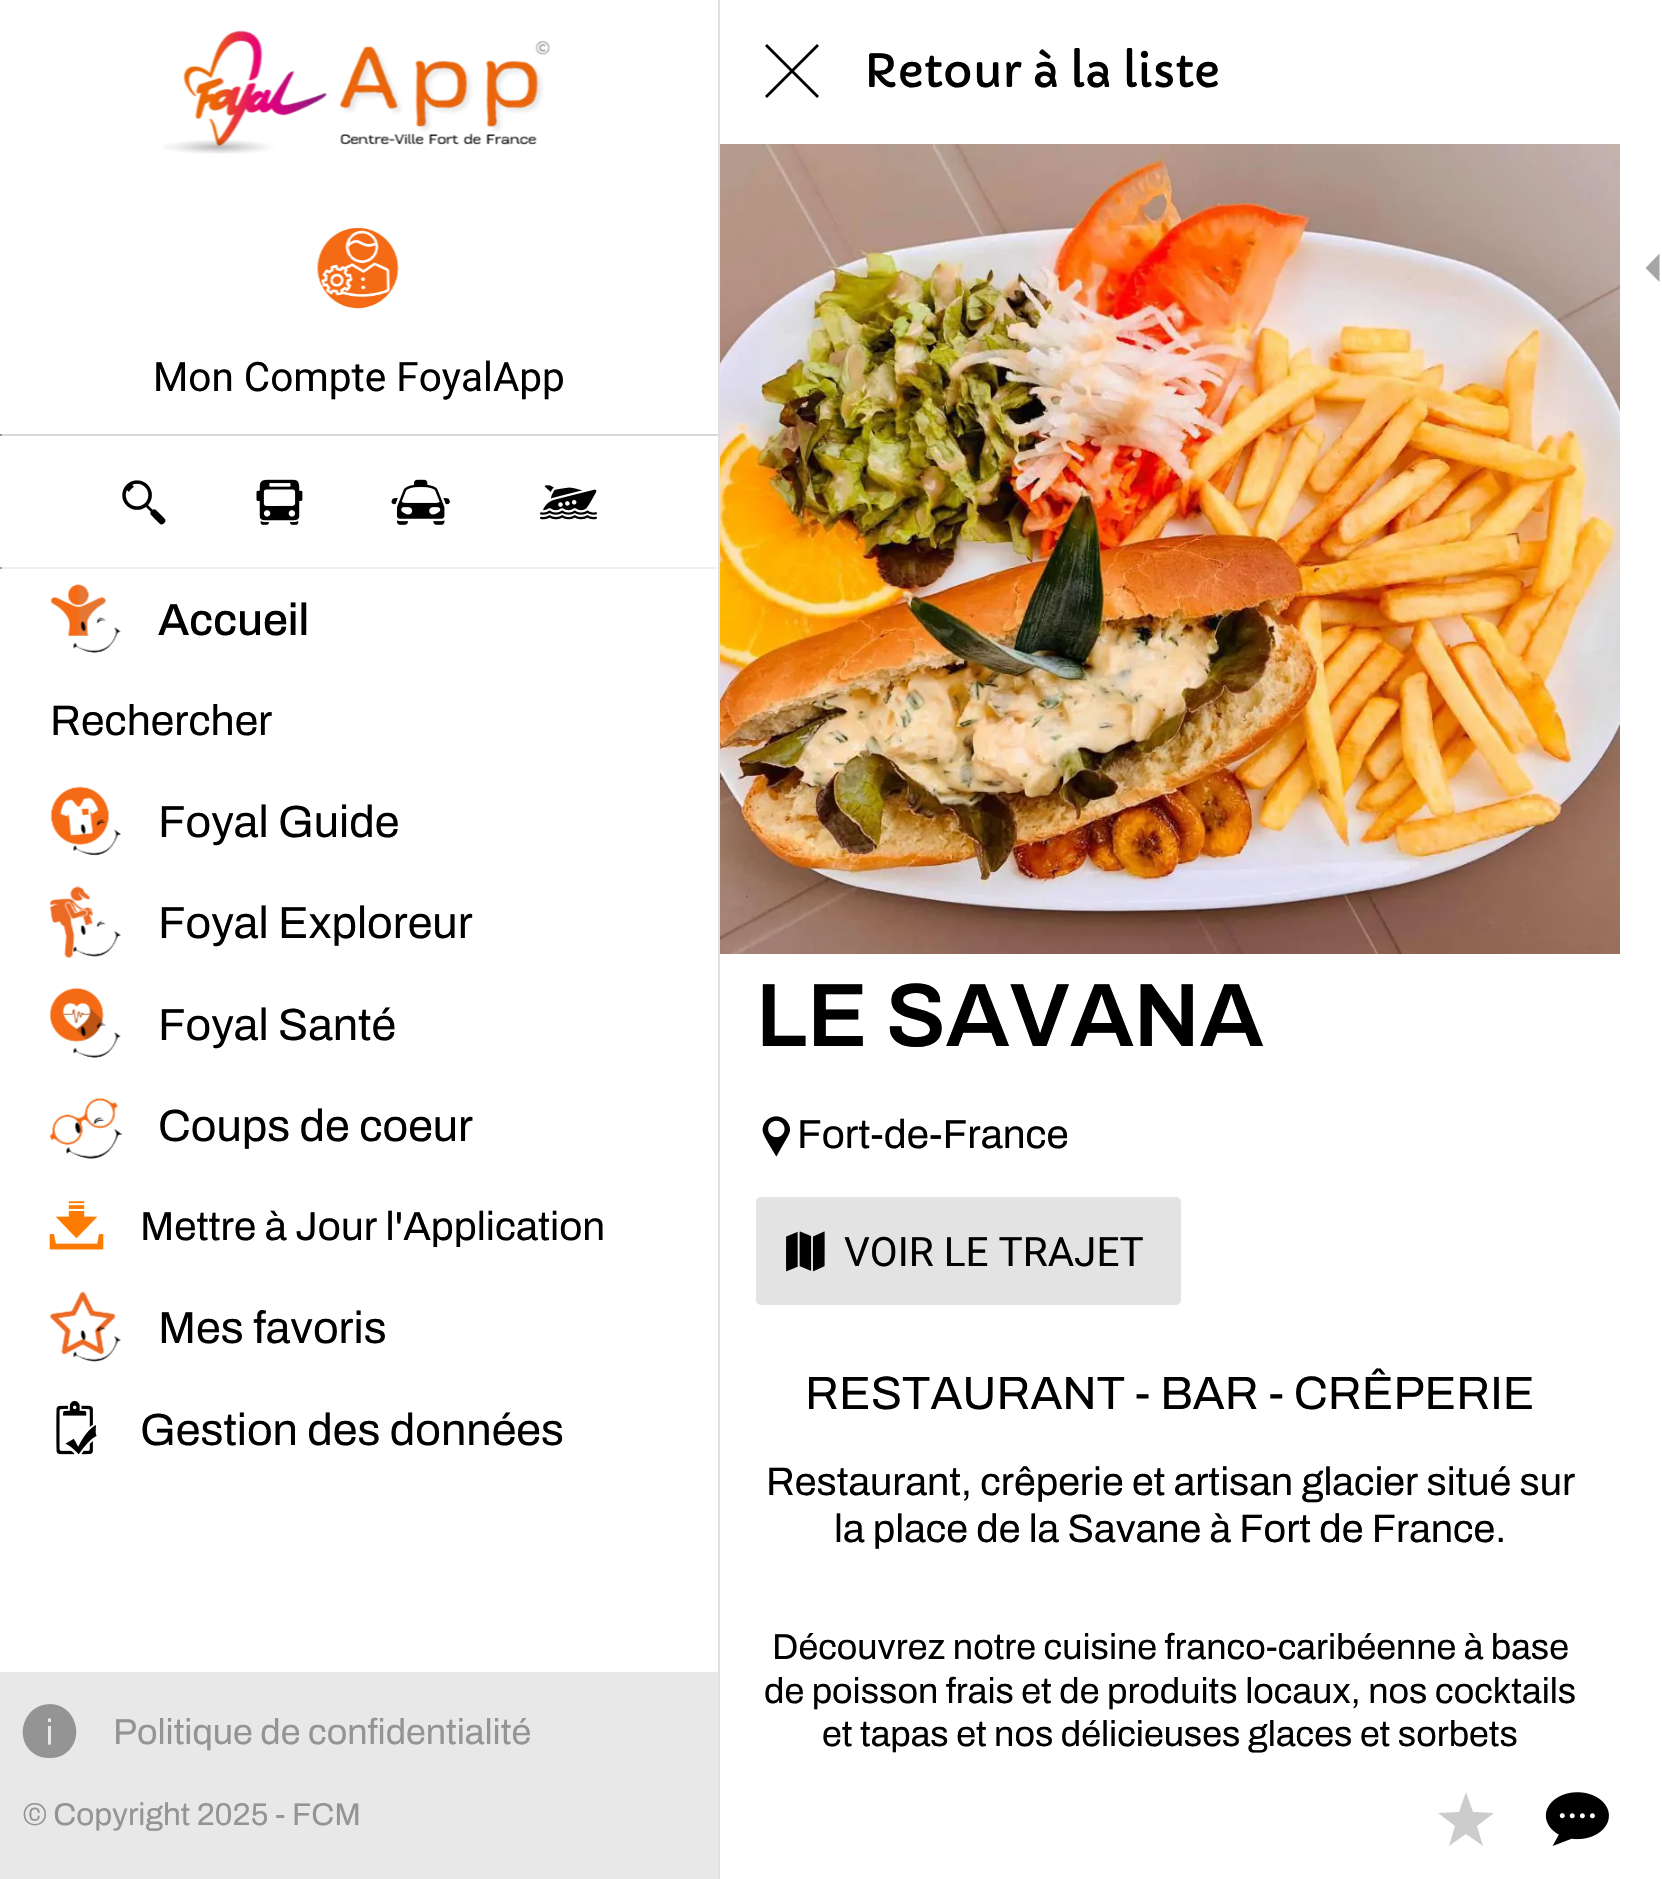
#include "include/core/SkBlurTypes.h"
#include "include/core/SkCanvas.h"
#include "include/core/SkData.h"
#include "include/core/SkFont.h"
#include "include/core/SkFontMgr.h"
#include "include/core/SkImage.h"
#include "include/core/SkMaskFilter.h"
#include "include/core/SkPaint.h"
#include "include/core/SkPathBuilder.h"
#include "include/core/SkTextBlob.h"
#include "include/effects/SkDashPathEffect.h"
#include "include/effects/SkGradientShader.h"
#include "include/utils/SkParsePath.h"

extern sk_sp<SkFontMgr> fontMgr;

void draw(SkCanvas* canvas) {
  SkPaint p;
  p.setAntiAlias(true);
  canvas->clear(SK_ColorWHITE);
  p.setColor(SkColorSetRGB(224, 224, 224));
  canvas->drawRect(SkRect::MakeLTRB(718, 0, 720, 1879), p);
  canvas->drawImageRect(SkImages::DeferredFromEncodedData(SkData::MakeFromFileName("images/1.png")), SkRect::MakeLTRB(163, 30, 550, 154), SkSamplingOptions());
  canvas->drawImageRect(SkImages::DeferredFromEncodedData(SkData::MakeFromFileName("images/2.png")), SkRect::MakeLTRB(316, 228, 399, 309), SkSamplingOptions());
  p.setColor(SkColorSetRGB(217, 217, 217));
  canvas->drawRect(SkRect::MakeLTRB(0, 434, 718, 436), p);
  p.setColor(SkColorSetRGB(145, 145, 145));
  canvas->drawRect(SkRect::MakeLTRB(0, 434, 2, 436), p);
  canvas->drawImageRect(SkImages::DeferredFromEncodedData(SkData::MakeFromFileName("images/3.png")), SkRect::MakeLTRB(122, 480, 166, 525), SkSamplingOptions());
  canvas->drawImageRect(SkImages::DeferredFromEncodedData(SkData::MakeFromFileName("images/4.png")), SkRect::MakeLTRB(256, 479, 303, 525), SkSamplingOptions());
  canvas->drawImageRect(SkImages::DeferredFromEncodedData(SkData::MakeFromFileName("images/5.png")), SkRect::MakeLTRB(391, 479, 450, 525), SkSamplingOptions());
  canvas->drawImageRect(SkImages::DeferredFromEncodedData(SkData::MakeFromFileName("images/6.png")), SkRect::MakeLTRB(540, 485, 597, 520), SkSamplingOptions());
  p.setColor(SkColorSetRGB(240, 240, 240));
  canvas->drawRect(SkRect::MakeLTRB(0, 567, 718, 569), p);
  p.setColor(SkColorSetRGB(160, 160, 160));
  canvas->drawRect(SkRect::MakeLTRB(0, 567, 2, 569), p);
  canvas->drawImageRect(SkImages::DeferredFromEncodedData(SkData::MakeFromFileName("images/7.png")), SkRect::MakeLTRB(50, 584, 121, 653), SkSamplingOptions());
  canvas->drawImageRect(SkImages::DeferredFromEncodedData(SkData::MakeFromFileName("images/8.png")), SkRect::MakeLTRB(50, 786, 121, 856), SkSamplingOptions());
  canvas->drawImageRect(SkImages::DeferredFromEncodedData(SkData::MakeFromFileName("images/9.png")), SkRect::MakeLTRB(50, 886, 121, 958), SkSamplingOptions());
  canvas->drawImageRect(SkImages::DeferredFromEncodedData(SkData::MakeFromFileName("images/10.png")), SkRect::MakeLTRB(50, 987, 121, 1058), SkSamplingOptions());
  canvas->drawImageRect(SkImages::DeferredFromEncodedData(SkData::MakeFromFileName("images/11.png")), SkRect::MakeLTRB(50, 1097, 122, 1159), SkSamplingOptions());
  canvas->drawImageRect(SkImages::DeferredFromEncodedData(SkData::MakeFromFileName("images/12.png")), SkRect::MakeLTRB(49, 1201, 104, 1250), SkSamplingOptions());
  canvas->drawImageRect(SkImages::DeferredFromEncodedData(SkData::MakeFromFileName("images/13.png")), SkRect::MakeLTRB(50, 1291, 121, 1362), SkSamplingOptions());
  canvas->drawImageRect(SkImages::DeferredFromEncodedData(SkData::MakeFromFileName("images/14.png")), SkRect::MakeLTRB(56, 1400, 97, 1455), SkSamplingOptions());
  p.setColor(SkColorSetRGB(232, 232, 232));
  canvas->drawRect(SkRect::MakeLTRB(0, 1672, 718, 1879), p);
  p.setColor(SkColorSetRGB(148, 148, 148));
  canvas->drawPath(SkPathBuilder().moveTo(50, 1704).cubicTo(24, 1704, 13, 1738, 33, 1753).cubicTo(38, 1757, 44, 1758, 50, 1758).cubicTo(55, 1758, 61, 1757, 66, 1753).cubicTo(86, 1738, 75, 1704, 50, 1704).close().moveTo(51, 1744).cubicTo(51, 1745, 48, 1745, 48, 1744).lineTo(48, 1726).lineTo(51, 1726).close().moveTo(51, 1722).lineTo(48, 1722).lineTo(48, 1719).cubicTo(48, 1718, 51, 1718, 51, 1719).close().detach(), p);
  p.setColor(SK_ColorBLACK);
  canvas->drawPath(SkPathBuilder().moveTo(819, 46).lineTo(817, 44).lineTo(792, 69).lineTo(767, 44).lineTo(765, 46).lineTo(790, 71).lineTo(765, 96).lineTo(767, 98).lineTo(792, 73).lineTo(817, 98).lineTo(819, 96).lineTo(794, 71).close().detach(), p);
  p.setColor(SkColorSetRGB(166, 166, 166));
  canvas->drawPath(SkPathBuilder().moveTo(1659.5f, 253.5f).lineTo(1645.5f, 268).lineTo(1659.5f, 282).close().detach(), p);
  canvas->drawImageRect(SkImages::DeferredFromEncodedData(SkData::MakeFromFileName("images/15.png")), SkRect::MakeLTRB(720, 144, 1620, 954), SkSamplingOptions());
  canvas->drawImageRect(SkImages::DeferredFromEncodedData(SkData::MakeFromFileName("images/16.png")), SkRect::MakeLTRB(762, 1116, 790, 1157), SkSamplingOptions());
  p.setColor(SkColorSetRGB(227, 227, 227));
  canvas->drawRoundRect(SkRect::MakeLTRB(756, 1197, 1181, 1305), 5, 5, p);
  canvas->drawImageRect(SkImages::DeferredFromEncodedData(SkData::MakeFromFileName("images/17.png")), SkRect::MakeLTRB(786, 1231, 825, 1272), SkSamplingOptions());
  p.setColor(SkColorSetRGB(204, 204, 204));
  canvas->drawPath(SkPathBuilder().moveTo(1494, 1813).lineTo(1473, 1812).lineTo(1466, 1792).lineTo(1459, 1812).lineTo(1438, 1813).lineTo(1455, 1826).lineTo(1449, 1846).lineTo(1466, 1834).lineTo(1483, 1846).lineTo(1477, 1826).close().detach(), p);
  canvas->drawImageRect(SkImages::DeferredFromEncodedData(SkData::MakeFromFileName("images/18.png")), SkRect::MakeLTRB(1545, 1792, 1609, 1846), SkSamplingOptions());
  SkFont font1(fontMgr->matchFamilyStyle("Roboto", SkFontStyle::Normal()), 40.5f);
  font1.setSubpixel(true);
  p.setColor(SK_ColorBLACK);
  canvas->drawString("Mon Compte FoyalApp", 153, 391, font1, p);
  SkFont font2(fontMgr->matchFamilyStyle("Archivo", SkFontStyle(500, SkFontStyle::kNormal_Width, SkFontStyle::kUpright_Slant)), 45);
  font2.setSubpixel(true);
  canvas->drawString("Accueil", 158, 635, font2, p);
  SkFont font3(fontMgr->matchFamilyStyle("Archivo", SkFontStyle::Normal()), 42.75f);
  font3.setSubpixel(true);
  canvas->drawString("Rechercher", 50, 735, font3, p);
  SkFont font4(fontMgr->matchFamilyStyle("Archivo", SkFontStyle::Normal()), 45);
  font4.setSubpixel(true);
  canvas->drawString("Foyal Guide", 158, 837, font4, p);
  canvas->drawString("Foyal Exploreur", 158, 938, font4, p);
  canvas->drawString("Foyal Santé", 158, 1040, font4, p);
  canvas->drawString("Coups de coeur", 158, 1141, font4, p);
  SkFont font5(fontMgr->matchFamilyStyle("Archivo", SkFontStyle::Normal()), 40.5f);
  font5.setSubpixel(true);
  canvas->drawString("Mettre à Jour l'Application", 140, 1240, font5, p);
  canvas->drawString("Mes favoris", 158, 1343, font4, p);
  canvas->drawString("Gestion des données", 140, 1445, font4, p);
  SkFont font6(fontMgr->matchFamilyStyle("Archivo", SkFontStyle::Normal()), 36);
  font6.setSubpixel(true);
  p.setColor(SkColorSetRGB(148, 148, 148));
  canvas->drawString("Politique de confidentialité", 113, 1744, font6, p);
  SkFont font7(fontMgr->matchFamilyStyle("Archivo", SkFontStyle::Normal()), 31.5f);
  font7.setSubpixel(true);
  canvas->drawString("© Copyright 2025 - FCM", 23, 1825, font7, p);
  SkFont font8(fontMgr->matchFamilyStyle("Capriola", SkFontStyle::Normal()), 45);
  font8.setSubpixel(true);
  p.setColor(SK_ColorBLACK);
  canvas->drawString("Retour à la liste", 864, 87, font8, p);
  SkFont font9(fontMgr->matchFamilyStyle("Archivo", SkFontStyle(600, SkFontStyle::kNormal_Width, SkFontStyle::kUpright_Slant)), 90);
  font9.setSubpixel(true);
  canvas->drawString("LE SAVANA", 756, 1046, font9, p);
  canvas->drawString("Fort-de-France", 797, 1148, font5, p);
  canvas->drawString("VOIR LE TRAJET", 844, 1266, font1, p);
  SkFont font10(fontMgr->matchFamilyStyle("Archivo", SkFontStyle::Normal()), 46.75f);
  font10.setSubpixel(true);
  canvas->drawString("RESTAURANT - BAR - CRÊPERIE", 805, 1409, font10, p);
  SkFont font11(fontMgr->matchFamilyStyle("Archivo", SkFontStyle::Normal()), 39.6f);
  font11.setSubpixel(true);
  canvas->drawString("Restaurant, crêperie et artisan glacier situé sur", 766, 1495, font11, p);
  canvas->drawString("la place de la Savane à Fort de France.", 834, 1542, font11, p);
  canvas->drawString("Découvrez notre cuisine franco-caribéenne à base", 772, 1659, font6, p);
  canvas->drawString("de poisson frais et de produits locaux, nos cocktails", 764, 1703, font6, p);
  canvas->drawString("et tapas et nos délicieuses glaces et sorbets", 822, 1746, font6, p);
}
